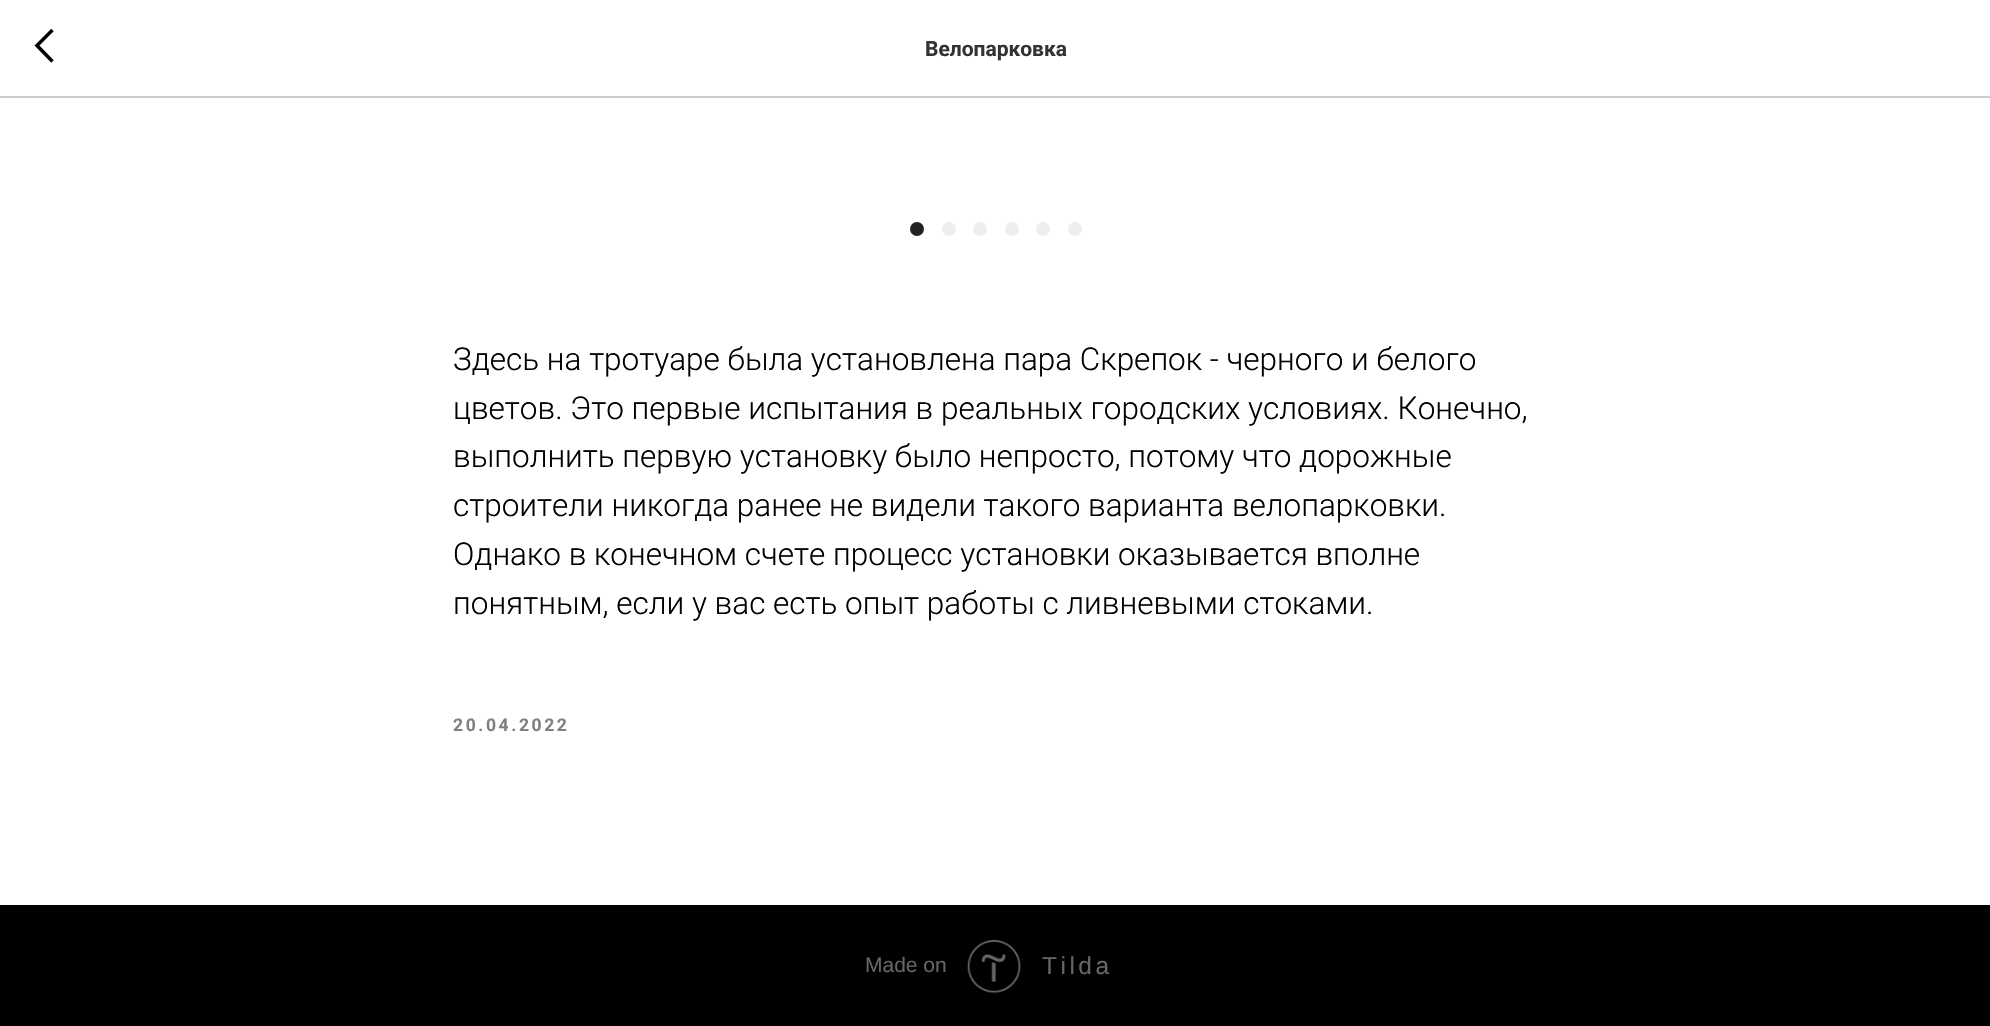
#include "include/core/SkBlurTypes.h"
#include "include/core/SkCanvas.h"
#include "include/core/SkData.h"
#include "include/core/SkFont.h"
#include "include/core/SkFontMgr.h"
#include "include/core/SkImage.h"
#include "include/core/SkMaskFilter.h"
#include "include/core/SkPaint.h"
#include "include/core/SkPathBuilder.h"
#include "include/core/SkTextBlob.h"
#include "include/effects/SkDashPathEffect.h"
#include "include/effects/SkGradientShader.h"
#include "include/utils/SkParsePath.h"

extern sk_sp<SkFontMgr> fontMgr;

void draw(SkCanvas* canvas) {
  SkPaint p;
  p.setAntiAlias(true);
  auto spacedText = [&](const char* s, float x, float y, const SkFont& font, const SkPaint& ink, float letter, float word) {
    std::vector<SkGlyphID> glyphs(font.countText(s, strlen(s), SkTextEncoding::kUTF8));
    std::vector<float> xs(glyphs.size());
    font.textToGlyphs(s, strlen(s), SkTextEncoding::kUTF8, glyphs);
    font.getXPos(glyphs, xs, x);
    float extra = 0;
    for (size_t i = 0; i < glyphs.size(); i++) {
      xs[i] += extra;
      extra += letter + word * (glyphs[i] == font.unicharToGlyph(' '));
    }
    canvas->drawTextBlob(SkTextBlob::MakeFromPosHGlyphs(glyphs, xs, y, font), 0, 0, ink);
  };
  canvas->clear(SK_ColorWHITE);
  p.setColor(SkColorSetRGB(204, 204, 204));
  canvas->drawRect(SkRect::MakeLTRB(0, 96, 1990, 98), p);
  p.setStyle(SkPaint::kStroke_Style);
  p.setStrokeWidth(3.5f);
  p.setColor(SK_ColorBLACK);
  canvas->drawPath(SkPathBuilder().moveTo(52.5f, 61.5f).lineTo(37, 45.5f).lineTo(52.5f, 30).detach(), p);
  p.setStyle(SkPaint::kFill_Style);
  p.setColor(SkColorSetRGB(34, 34, 34));
  canvas->drawCircle(917, 229, 7, p);
  p.setColor(SkColorSetRGB(238, 238, 238));
  canvas->drawCircle(949, 229, 7, p);
  canvas->drawCircle(980, 229, 7, p);
  canvas->drawCircle(1012, 229, 7, p);
  canvas->drawCircle(1043, 229, 7, p);
  canvas->drawCircle(1075, 229, 7, p);
  p.setColor(SK_ColorBLACK);
  canvas->drawRect(SkRect::MakeLTRB(0, 905, 1990, 1026), p);
  canvas->drawImageRect(SkImages::DeferredFromEncodedData(SkData::MakeFromFileName("images/1.png")), SkRect::MakeLTRB(967, 940, 1021, 993), SkSamplingOptions());
  SkFont font1(fontMgr->matchFamilyStyle("Roboto", SkFontStyle::Bold()), 21);
  font1.setSubpixel(true);
  p.setColor(SkColorSetRGB(51, 51, 51));
  canvas->drawString("Велопарковка", 925, 56, font1, p);
  SkFont font2(fontMgr->matchFamilyStyle("Roboto", SkFontStyle(300, SkFontStyle::kNormal_Width, SkFontStyle::kUpright_Slant)), 31.5f);
  font2.setSubpixel(true);
  p.setColor(SK_ColorBLACK);
  canvas->drawString("Здесь на тротуаре была установлена пара Скрепок - черного и белого", 453, 370, font2, p);
  canvas->drawString("цветов. Это первые испытания в реальных городских условиях. Конечно,", 453, 419, font2, p);
  canvas->drawString("выполнить первую установку было непросто, потому что дорожные", 453, 467, font2, p);
  canvas->drawString("строители никогда ранее не видели такого варианта велопарковки.", 453, 516, font2, p);
  canvas->drawString("Однако в конечном счете процесс установки оказывается вполне", 453, 565, font2, p);
  canvas->drawString("понятным, если у вас есть опыт работы с ливневыми стоками.", 453, 614, font2, p);
  SkFont font3(fontMgr->matchFamilyStyle("Roboto", SkFontStyle::Bold()), 17.5f);
  font3.setSubpixel(true);
  p.setColor(SkColorSetRGB(128, 128, 128));
  spacedText("20.04.2022", 453, 731, font3, p, 2.6f, 0);
  SkFont font4(fontMgr->matchFamilyStyle("Liberation Sans", SkFontStyle::Normal()), 21);
  font4.setSubpixel(true);
  p.setColor(SkColorSetRGB(102, 102, 102));
  canvas->drawString("Made on", 865, 972, font4, p);
  SkFont font5(fontMgr->matchFamilyStyle("Liberation Sans", SkFontStyle::Normal()), 24.5f);
  font5.setSubpixel(true);
  spacedText("Tilda", 1042, 974, font5, p, 3.5f, 0);
}
